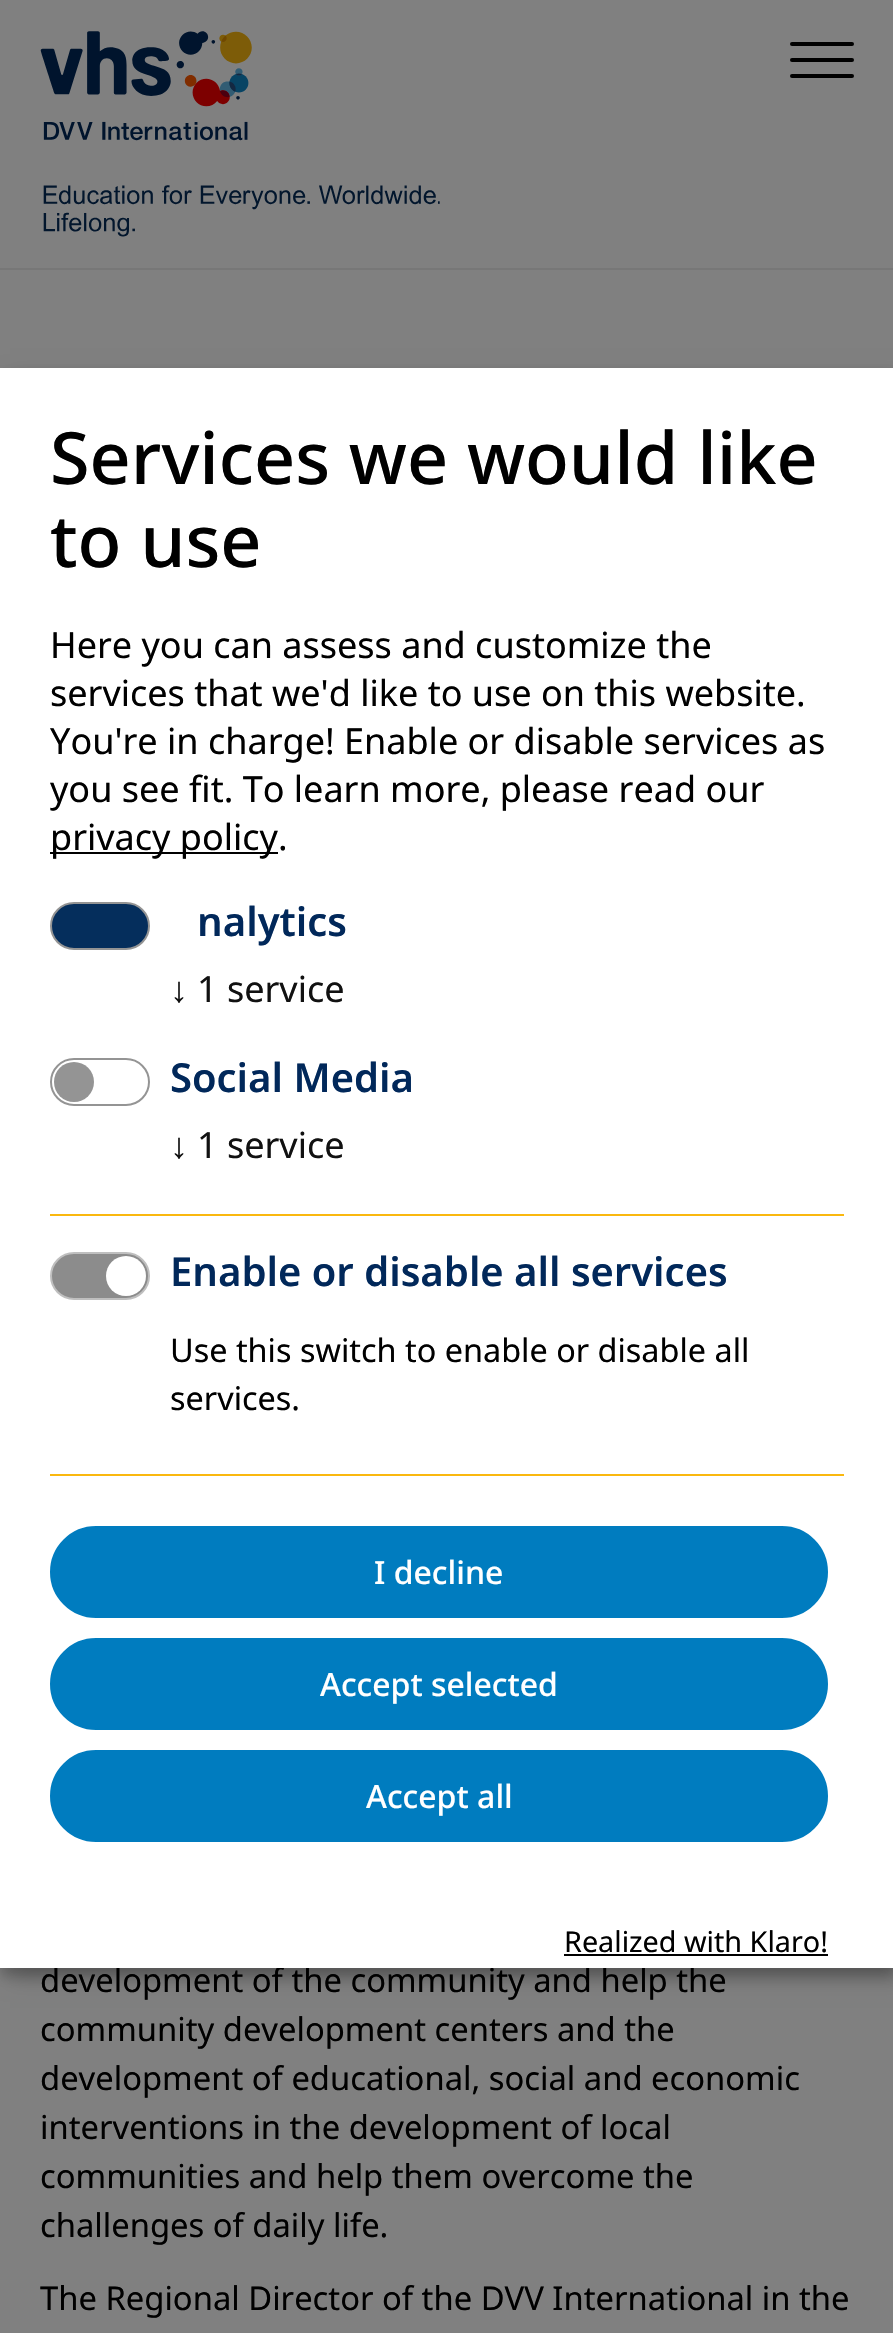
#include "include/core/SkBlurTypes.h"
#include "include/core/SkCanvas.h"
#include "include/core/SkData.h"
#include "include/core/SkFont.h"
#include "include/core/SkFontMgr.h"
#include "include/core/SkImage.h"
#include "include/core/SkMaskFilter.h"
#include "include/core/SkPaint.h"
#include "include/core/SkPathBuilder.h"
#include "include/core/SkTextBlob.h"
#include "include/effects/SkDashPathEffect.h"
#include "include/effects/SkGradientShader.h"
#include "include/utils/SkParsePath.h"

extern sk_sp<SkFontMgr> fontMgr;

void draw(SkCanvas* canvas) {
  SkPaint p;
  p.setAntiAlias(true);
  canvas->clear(SkColorSetRGB(128, 128, 128));
  p.setColor(SkColorSetRGB(119, 119, 119));
  canvas->drawRect(SkRect::MakeLTRB(0, 268, 893, 270), p);
  canvas->drawImageRect(SkImages::DeferredFromEncodedData(SkData::MakeFromFileName("images/1.png")), SkRect::MakeLTRB(40, 31, 440, 237), SkSamplingOptions());
  p.setColor(SK_ColorBLACK);
  canvas->drawRoundRect(SkRect::MakeLTRB(790, 42, 854, 46), 2, 2, p);
  canvas->drawRoundRect(SkRect::MakeLTRB(790, 58, 854, 62), 2, 2, p);
  canvas->drawRoundRect(SkRect::MakeLTRB(790, 74, 854, 78), 2, 2, p);
  p.setColor(SkColorSetARGB(48, 0, 0, 0));
  p.setMaskFilter(SkMaskFilter::MakeBlur(kNormal_SkBlurStyle, 10));
  canvas->drawRect(SkRect::MakeLTRB(10, 378, 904, 1978), p);
  p.setMaskFilter(nullptr);
  p.setColor(SkColorSetARGB(51, 0, 0, 0));
  p.setMaskFilter(SkMaskFilter::MakeBlur(kNormal_SkBlurStyle, 6));
  canvas->drawRect(SkRect::MakeLTRB(0, 376, 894, 1976), p);
  p.setMaskFilter(nullptr);
  SkFont font1(fontMgr->matchFamilyStyle("Noto Sans", SkFontStyle::Normal()), 32.75f);
  font1.setSubpixel(true);
  p.setColor(SK_ColorBLACK);
  canvas->drawString("development of the community and help the", 40, 1992, font1, p);
  p.setColor(SK_ColorWHITE);
  canvas->drawRect(SkRect::MakeLTRB(0, 368, 893, 1968), p);
  p.setColor(SkColorSetRGB(140, 140, 140));
  canvas->drawRoundRect(SkRect::MakeLTRB(51, 1253, 149, 1299), 23, 23, p);
  p.setStyle(SkPaint::kStroke_Style);
  p.setStrokeWidth(2);
  p.setColor(SkColorSetRGB(191, 191, 191));
  canvas->drawRoundRect(SkRect::MakeLTRB(51, 1253, 149, 1299), 23, 23, p);
  p.setStyle(SkPaint::kFill_Style);
  p.setColor(SK_ColorWHITE);
  canvas->drawCircle(126, 1276, 20, p);
  SkFont font2(fontMgr->matchFamilyStyle("Noto Sans", SkFontStyle::Normal()), 32.4f);
  font2.setSubpixel(true);
  p.setColor(SK_ColorBLACK);
  canvas->drawString("services.", 170, 1410, font2, p);
  canvas->drawString("Use this switch to enable or disable all", 170, 1362, font2, p);
  SkFont font3(fontMgr->matchFamilyStyle("Noto Sans", SkFontStyle(600, SkFontStyle::kNormal_Width, SkFontStyle::kUpright_Slant)), 40);
  font3.setSubpixel(true);
  p.setColor(SkColorSetRGB(1, 40, 90));
  canvas->drawString("Enable or disable all services", 170, 1286, font3, p);
  p.setColor(SkColorSetRGB(250, 184, 15));
  canvas->drawRect(SkRect::MakeLTRB(50, 1214, 844, 1216), p);
  p.setStyle(SkPaint::kStroke_Style);
  p.setColor(SkColorSetRGB(148, 148, 148));
  canvas->drawRoundRect(SkRect::MakeLTRB(51, 1059, 149, 1105), 23, 23, p);
  p.setStyle(SkPaint::kFill_Style);
  canvas->drawCircle(74, 1082, 20, p);
  SkFont font4(fontMgr->matchFamilyStyle("Noto Sans", SkFontStyle::Normal()), 36);
  font4.setSubpixel(true);
  p.setColor(SkColorSetRGB(17, 17, 17));
  canvas->drawString("1 service", 197, 1158, font4, p);
  SkFont font5(fontMgr->matchFamilyStyle("Liberation Serif", SkFontStyle::Normal()), 36);
  font5.setSubpixel(true);
  canvas->drawString("↓", 170, 1158, font5, p);
  p.setColor(SkColorSetRGB(1, 40, 90));
  canvas->drawString("Social Media", 170, 1092, font3, p);
  p.setColor(SkColorSetRGB(5, 46, 92));
  canvas->drawRoundRect(SkRect::MakeLTRB(51, 903, 149, 949), 23, 23, p);
  p.setStyle(SkPaint::kStroke_Style);
  p.setColor(SkColorSetRGB(148, 148, 148));
  canvas->drawRoundRect(SkRect::MakeLTRB(51, 903, 149, 949), 23, 23, p);
  p.setStyle(SkPaint::kFill_Style);
  p.setColor(SkColorSetRGB(17, 17, 17));
  canvas->drawString("1 service", 197, 1002, font4, p);
  canvas->drawString("↓", 170, 1002, font5, p);
  p.setColor(SkColorSetRGB(1, 40, 90));
  canvas->drawString("nalytics", 197, 936, font3, p);
  SkFont font6(fontMgr->matchFamilyStyle("Noto Sans", SkFontStyle::Normal()), 28.75f);
  font6.setSubpixel(true);
  p.setColor(SK_ColorBLACK);
  canvas->drawString("Realized with Klaro!", 564, 1952, font6, p);
  canvas->drawRect(SkRect::MakeLTRB(564, 1954, 828, 1956), p);
  p.setColor(SkColorSetRGB(0, 124, 191));
  canvas->drawRoundRect(SkRect::MakeLTRB(51, 1751, 827, 1841), 45, 45, p);
  p.setStyle(SkPaint::kStroke_Style);
  canvas->drawRoundRect(SkRect::MakeLTRB(51, 1751, 827, 1841), 45, 45, p);
  SkFont font7(fontMgr->matchFamilyStyle("Noto Sans", SkFontStyle(500, SkFontStyle::kNormal_Width, SkFontStyle::kUpright_Slant)), 32);
  font7.setSubpixel(true);
  p.setStyle(SkPaint::kFill_Style);
  p.setColor(SK_ColorWHITE);
  canvas->drawString("Accept all", 366, 1808, font7, p);
  p.setColor(SkColorSetRGB(0, 124, 191));
  canvas->drawRoundRect(SkRect::MakeLTRB(51, 1639, 827, 1729), 45, 45, p);
  p.setStyle(SkPaint::kStroke_Style);
  canvas->drawRoundRect(SkRect::MakeLTRB(51, 1639, 827, 1729), 45, 45, p);
  p.setStyle(SkPaint::kFill_Style);
  p.setColor(SK_ColorWHITE);
  canvas->drawString("Accept selected", 320, 1696, font7, p);
  p.setColor(SkColorSetRGB(0, 124, 191));
  canvas->drawRoundRect(SkRect::MakeLTRB(51, 1527, 827, 1617), 45, 45, p);
  p.setStyle(SkPaint::kStroke_Style);
  canvas->drawRoundRect(SkRect::MakeLTRB(51, 1527, 827, 1617), 45, 45, p);
  p.setStyle(SkPaint::kFill_Style);
  p.setColor(SK_ColorWHITE);
  canvas->drawString("I decline", 374, 1584, font7, p);
  p.setColor(SK_ColorBLACK);
  canvas->drawRect(SkRect::MakeLTRB(50, 852, 278, 854), p);
  canvas->drawString("privacy policy.", 50, 850, font4, p);
  canvas->drawString("you see fit. To learn more, please read our", 50, 802, font4, p);
  canvas->drawString("You're in charge! Enable or disable services as", 50, 754, font4, p);
  canvas->drawString("services that we'd like to use on this website.", 50, 706, font4, p);
  canvas->drawString("Here you can assess and customize the", 50, 658, font4, p);
  SkFont font8(fontMgr->matchFamilyStyle("Noto Sans", SkFontStyle(500, SkFontStyle::kNormal_Width, SkFontStyle::kUpright_Slant)), 72);
  font8.setSubpixel(true);
  canvas->drawString("to use", 50, 567, font8, p);
  canvas->drawString("Services we would like", 50, 484, font8, p);
  p.setColor(SkColorSetRGB(250, 184, 15));
  canvas->drawRect(SkRect::MakeLTRB(50, 1474, 844, 1476), p);
  p.setColor(SK_ColorBLACK);
  canvas->drawString("community development centers and the", 40, 2041, font1, p);
  canvas->drawString("development of educational, social and economic", 40, 2090, font1, p);
  canvas->drawString("interventions in the development of local", 40, 2139, font1, p);
  canvas->drawString("communities and help them overcome the", 40, 2188, font1, p);
  canvas->drawString("challenges of daily life.", 40, 2237, font1, p);
  canvas->drawString("The Regional Director of the DVV International in the", 40, 2310, font1, p);
}
